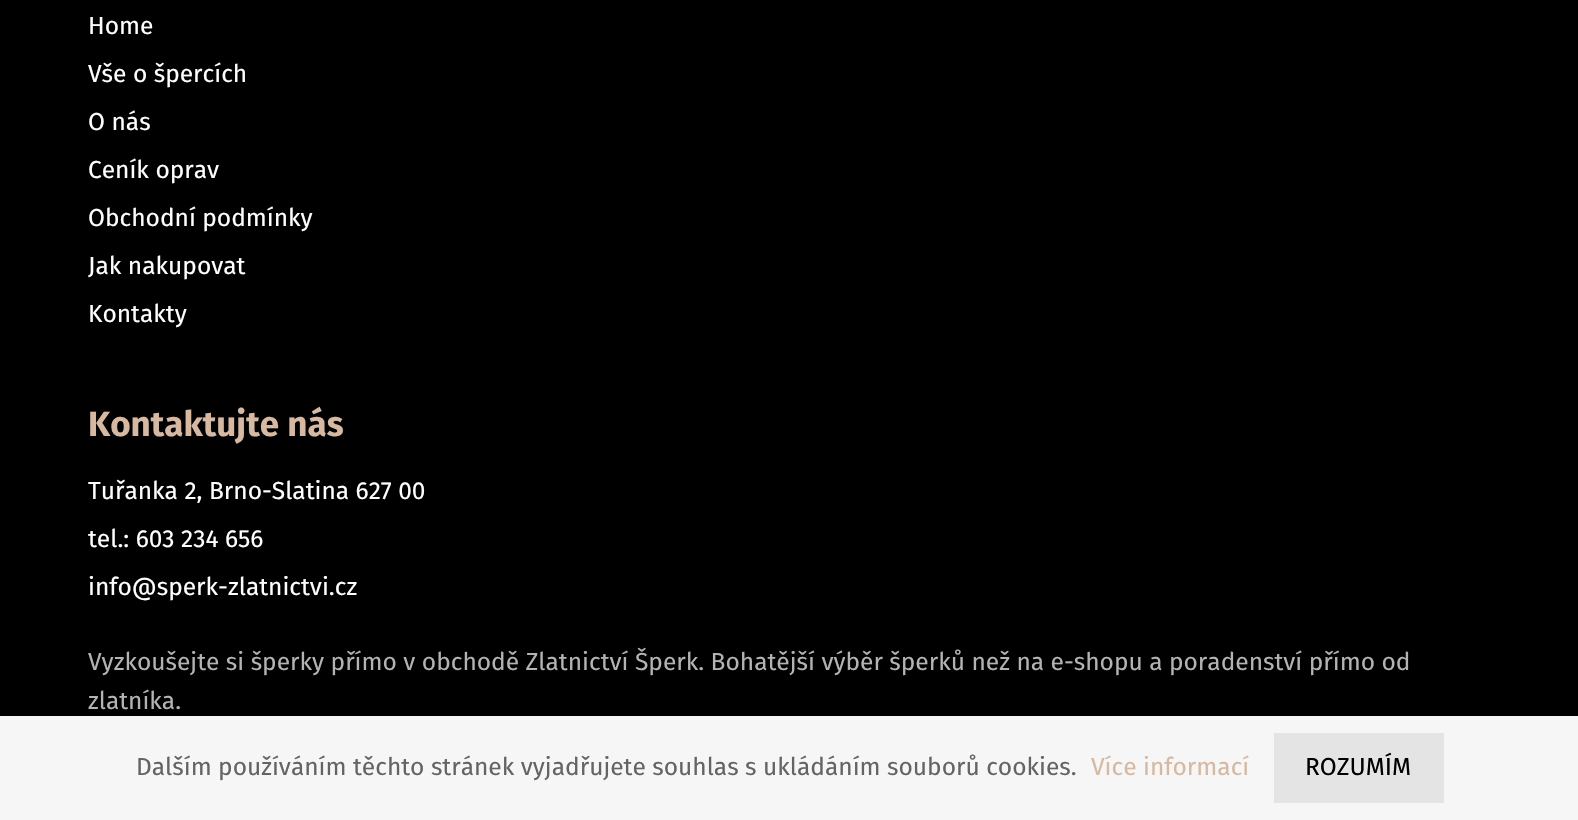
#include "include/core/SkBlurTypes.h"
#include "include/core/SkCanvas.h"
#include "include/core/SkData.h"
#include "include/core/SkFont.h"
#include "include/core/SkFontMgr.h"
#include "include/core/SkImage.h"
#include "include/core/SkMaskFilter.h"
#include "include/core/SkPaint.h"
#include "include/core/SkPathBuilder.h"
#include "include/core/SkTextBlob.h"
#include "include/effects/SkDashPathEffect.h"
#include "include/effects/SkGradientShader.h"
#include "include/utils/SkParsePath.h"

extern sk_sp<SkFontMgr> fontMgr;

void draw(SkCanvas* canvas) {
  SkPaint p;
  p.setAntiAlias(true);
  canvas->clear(SK_ColorBLACK);
  p.setColor(SkColorSetRGB(246, 246, 246));
  canvas->drawRect(SkRect::MakeLTRB(0, 716, 1578, 820), p);
  p.setColor(SkColorSetRGB(228, 228, 228));
  canvas->drawRect(SkRect::MakeLTRB(1274, 733, 1444, 803), p);
  SkFont font1(fontMgr->matchFamilyStyle("Fira Sans", SkFontStyle::Normal()), 24.5f);
  font1.setSubpixel(true);
  p.setColor(SK_ColorWHITE);
  canvas->drawString("Home", 88, 34, font1, p);
  canvas->drawString("Vše o špercích", 88, 82, font1, p);
  canvas->drawString("O nás", 88, 130, font1, p);
  canvas->drawString("Ceník oprav", 88, 178, font1, p);
  canvas->drawString("Obchodní podmínky", 88, 226, font1, p);
  canvas->drawString("Jak nakupovat", 88, 274, font1, p);
  canvas->drawString("Kontakty", 88, 322, font1, p);
  SkFont font2(fontMgr->matchFamilyStyle("Fira Sans", SkFontStyle::Bold()), 35);
  font2.setSubpixel(true);
  p.setColor(SkColorSetRGB(215, 185, 162));
  canvas->drawString("Kontaktujte nás", 88, 436, font2, p);
  p.setColor(SK_ColorWHITE);
  canvas->drawString("Tuřanka 2, Brno-Slatina 627 00", 88, 499, font1, p);
  canvas->drawString("tel.: 603 234 656", 88, 547, font1, p);
  canvas->drawString("info@sperk-zlatnictvi.cz", 88, 595, font1, p);
  p.setColor(SkColorSetRGB(179, 179, 179));
  canvas->drawString("Vyzkoušejte si šperky přímo v obchodě Zlatnictví Šperk. Bohatější výběr šperků než na e-shopu a poradenství přímo od", 88, 670, font1, p);
  canvas->drawString("zlatníka.", 88, 709, font1, p);
  p.setColor(SkColorSetRGB(99, 100, 102));
  canvas->drawString("Dalším používáním těchto stránek vyjadřujete souhlas s ukládáním souborů cookies.", 136, 775, font1, p);
  p.setColor(SkColorSetRGB(215, 185, 162));
  canvas->drawString("Více informací", 1091, 775, font1, p);
  p.setColor(SK_ColorBLACK);
  canvas->drawString("ROZUMÍM", 1305, 775, font1, p);
}
